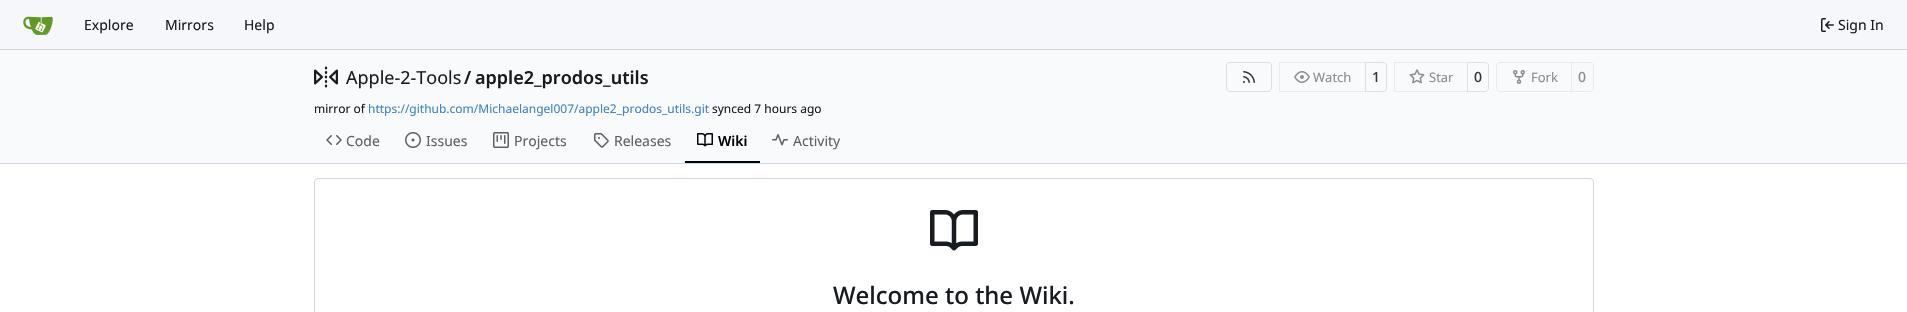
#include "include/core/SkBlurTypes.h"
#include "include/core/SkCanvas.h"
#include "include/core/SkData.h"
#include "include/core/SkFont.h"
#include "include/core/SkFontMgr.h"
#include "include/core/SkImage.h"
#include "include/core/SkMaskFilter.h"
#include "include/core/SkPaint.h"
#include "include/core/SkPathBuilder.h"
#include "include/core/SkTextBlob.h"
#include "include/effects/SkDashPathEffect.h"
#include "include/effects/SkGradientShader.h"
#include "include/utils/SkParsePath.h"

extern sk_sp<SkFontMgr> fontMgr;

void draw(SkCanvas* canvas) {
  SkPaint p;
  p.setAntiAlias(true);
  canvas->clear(SK_ColorWHITE);
  p.setColor(SkColorSetRGB(246, 247, 250));
  canvas->drawRect(SkRect::MakeLTRB(0, 0, 1907, 49), p);
  p.setColor(SkColorSetRGB(208, 215, 222));
  canvas->drawRect(SkRect::MakeLTRB(0, 49, 1907, 50), p);
  canvas->drawImageRect(SkImages::DeferredFromEncodedData(SkData::MakeFromFileName("images/1.png")), SkRect::MakeLTRB(23, 16, 53, 35), SkSamplingOptions());
  canvas->drawImageRect(SkImages::DeferredFromEncodedData(SkData::MakeFromFileName("images/2.png")), SkRect::MakeLTRB(1821, 18, 1834, 32), SkSamplingOptions());
  p.setColor(SkColorSetRGB(249, 250, 251));
  canvas->drawRect(SkRect::MakeLTRB(0, 50, 1907, 163), p);
  canvas->drawImageRect(SkImages::DeferredFromEncodedData(SkData::MakeFromFileName("images/3.png")), SkRect::MakeLTRB(314, 66, 338, 88), SkSamplingOptions());
  p.setStyle(SkPaint::kStroke_Style);
  p.setStrokeWidth(1);
  p.setColor(SkColorSetRGB(221, 222, 225));
  canvas->drawRoundRect(SkRect::MakeLTRB(1226.5f, 62.5f, 1271.5f, 91.5f), 3.5f, 3.5f, p);
  canvas->drawImageRect(SkImages::DeferredFromEncodedData(SkData::MakeFromFileName("images/4.png")), SkRect::MakeLTRB(1243, 71, 1255, 83), SkSamplingOptions());
  canvas->drawPath(SkPathBuilder().moveTo(1365.5f, 62.5f).lineTo(1383, 62.5f).cubicTo(1385, 62.5f, 1386.5f, 64, 1386.5f, 66).lineTo(1386.5f, 88).cubicTo(1386.5f, 90, 1385, 91.5f, 1383, 91.5f).lineTo(1365.5f, 91.5f).close().detach(), p);
  p.setStyle(SkPaint::kFill_Style);
  p.setColor(SkColorSetARGB(140, 248, 249, 251));
  canvas->drawPath(SkPathBuilder().moveTo(1283, 62).lineTo(1366, 62).lineTo(1366, 92).lineTo(1283, 92).cubicTo(1281, 92, 1279, 90, 1279, 88).lineTo(1279, 66).cubicTo(1279, 64, 1281, 62, 1283, 62).close().detach(), p);
  p.setStyle(SkPaint::kStroke_Style);
  p.setColor(SkColorSetARGB(15, 0, 0, 23));
  canvas->drawRect(SkRect::MakeLTRB(1279.5f, 62.5f, 1365.5f, 91.5f), p);
  canvas->drawImageRect(SkImages::DeferredFromEncodedData(SkData::MakeFromFileName("images/5.png")), SkRect::MakeLTRB(1294, 71, 1310, 83), SkSamplingOptions());
  p.setColor(SkColorSetRGB(221, 222, 225));
  canvas->drawPath(SkPathBuilder().moveTo(1467.5f, 62.5f).lineTo(1485, 62.5f).cubicTo(1487, 62.5f, 1488.5f, 64, 1488.5f, 66).lineTo(1488.5f, 88).cubicTo(1488.5f, 90, 1487, 91.5f, 1485, 91.5f).lineTo(1467.5f, 91.5f).close().detach(), p);
  p.setStyle(SkPaint::kFill_Style);
  p.setColor(SkColorSetARGB(140, 248, 249, 251));
  canvas->drawPath(SkPathBuilder().moveTo(1398, 62).lineTo(1468, 62).lineTo(1468, 92).lineTo(1398, 92).cubicTo(1396, 92, 1394, 90, 1394, 88).lineTo(1394, 66).cubicTo(1394, 64, 1396, 62, 1398, 62).close().detach(), p);
  p.setStyle(SkPaint::kStroke_Style);
  p.setColor(SkColorSetARGB(15, 0, 0, 23));
  canvas->drawRect(SkRect::MakeLTRB(1394.5f, 62.5f, 1467.5f, 91.5f), p);
  canvas->drawImageRect(SkImages::DeferredFromEncodedData(SkData::MakeFromFileName("images/6.png")), SkRect::MakeLTRB(1409, 69, 1425, 84), SkSamplingOptions());
  p.setColor(SkColorSetRGB(233, 234, 237));
  canvas->drawPath(SkPathBuilder().moveTo(1500, 62.5f).lineTo(1571.5f, 62.5f).lineTo(1571.5f, 91.5f).lineTo(1500, 91.5f).cubicTo(1498, 91.5f, 1496.5f, 90, 1496.5f, 88).lineTo(1496.5f, 66).cubicTo(1496.5f, 64, 1498, 62.5f, 1500, 62.5f).close().detach(), p);
  canvas->drawImageRect(SkImages::DeferredFromEncodedData(SkData::MakeFromFileName("images/7.png")), SkRect::MakeLTRB(1513, 70, 1525, 84), SkSamplingOptions());
  p.setStyle(SkPaint::kFill_Style);
  p.setColor(SkColorSetRGB(248, 249, 251));
  canvas->drawPath(SkPathBuilder().moveTo(1571.5f, 62.5f).lineTo(1590, 62.5f).cubicTo(1592, 62.5f, 1593.5f, 64, 1593.5f, 66).lineTo(1593.5f, 88).cubicTo(1593.5f, 90, 1592, 91.5f, 1590, 91.5f).lineTo(1571.5f, 91.5f).close().detach(), p);
  p.setStyle(SkPaint::kStroke_Style);
  p.setColor(SkColorSetRGB(233, 234, 237));
  canvas->drawPath(SkPathBuilder().moveTo(1571.5f, 62.5f).lineTo(1590, 62.5f).cubicTo(1592, 62.5f, 1593.5f, 64, 1593.5f, 66).lineTo(1593.5f, 88).cubicTo(1593.5f, 90, 1592, 91.5f, 1590, 91.5f).lineTo(1571.5f, 91.5f).close().detach(), p);
  canvas->drawImageRect(SkImages::DeferredFromEncodedData(SkData::MakeFromFileName("images/8.png")), SkRect::MakeLTRB(326, 135, 342, 145), SkSamplingOptions());
  canvas->drawImageRect(SkImages::DeferredFromEncodedData(SkData::MakeFromFileName("images/9.png")), SkRect::MakeLTRB(405, 132, 421, 148), SkSamplingOptions());
  canvas->drawImageRect(SkImages::DeferredFromEncodedData(SkData::MakeFromFileName("images/10.png")), SkRect::MakeLTRB(493, 132, 509, 148), SkSamplingOptions());
  canvas->drawImageRect(SkImages::DeferredFromEncodedData(SkData::MakeFromFileName("images/11.png")), SkRect::MakeLTRB(594, 133, 609, 148), SkSamplingOptions());
  p.setStyle(SkPaint::kFill_Style);
  p.setColor(SkColorSetRGB(1, 5, 10));
  canvas->drawRect(SkRect::MakeLTRB(685, 161, 760, 163), p);
  canvas->drawImageRect(SkImages::DeferredFromEncodedData(SkData::MakeFromFileName("images/12.png")), SkRect::MakeLTRB(697, 133, 713, 147), SkSamplingOptions());
  canvas->drawImageRect(SkImages::DeferredFromEncodedData(SkData::MakeFromFileName("images/13.png")), SkRect::MakeLTRB(772, 134, 788, 146), SkSamplingOptions());
  p.setColor(SkColorSetRGB(208, 215, 222));
  canvas->drawRect(SkRect::MakeLTRB(0, 163, 1907, 164), p);
  p.setStyle(SkPaint::kStroke_Style);
  canvas->drawRoundRect(SkRect::MakeLTRB(314.5f, 178.5f, 1593.5f, 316.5f), 3.5f, 3.5f, p);
  canvas->drawImageRect(SkImages::DeferredFromEncodedData(SkData::MakeFromFileName("images/14.png")), SkRect::MakeLTRB(930, 210, 978, 251), SkSamplingOptions());
  SkFont font1(fontMgr->matchFamilyStyle("Noto Sans", SkFontStyle::Normal()), 14);
  font1.setSubpixel(true);
  p.setStyle(SkPaint::kFill_Style);
  p.setColor(SkColorSetRGB(24, 28, 33));
  canvas->drawString("Explore", 84, 30, font1, p);
  canvas->drawString("Mirrors", 165, 30, font1, p);
  canvas->drawString("Help", 244, 30, font1, p);
  canvas->drawString("Sign In", 1838, 30, font1, p);
  SkFont font2(fontMgr->matchFamilyStyle("Noto Sans", SkFontStyle::Normal()), 18);
  font2.setSubpixel(true);
  canvas->drawString("Apple-2-Tools", 346, 84, font2, p);
  SkFont font3(fontMgr->matchFamilyStyle("Noto Sans", SkFontStyle(600, SkFontStyle::kNormal_Width, SkFontStyle::kUpright_Slant)), 18);
  font3.setSubpixel(true);
  canvas->drawString("/", 464, 84, font3, p);
  canvas->drawString("apple2_prodos_utils", 475, 84, font3, p);
  SkFont font4(fontMgr->matchFamilyStyle("Noto Sans", SkFontStyle::Normal()), 13);
  font4.setSubpixel(true);
  p.setColor(SkColorSetRGB(138, 142, 145));
  canvas->drawString("Watch", 1313, 82, font4, p);
  SkFont font5(fontMgr->matchFamilyStyle("Noto Sans", SkFontStyle(500, SkFontStyle::kNormal_Width, SkFontStyle::kUpright_Slant)), 14);
  font5.setSubpixel(true);
  p.setColor(SkColorSetRGB(48, 54, 59));
  canvas->drawString("1", 1372, 82, font5, p);
  p.setColor(SkColorSetRGB(138, 142, 145));
  canvas->drawString("Star", 1429, 82, font4, p);
  p.setColor(SkColorSetRGB(48, 54, 59));
  canvas->drawString("0", 1474, 82, font5, p);
  p.setColor(SkColorSetRGB(138, 142, 145));
  canvas->drawString("Fork", 1531, 82, font4, p);
  canvas->drawString("0", 1578, 82, font5, p);
  SkFont font6(fontMgr->matchFamilyStyle("Noto Sans", SkFontStyle::Normal()), 12);
  font6.setSubpixel(true);
  p.setColor(SkColorSetRGB(24, 28, 33));
  canvas->drawString("mirror of", 314, 113, font6, p);
  p.setColor(SkColorSetRGB(65, 131, 196));
  canvas->drawString("https://github.com/Michaelangel007/apple2_prodos_utils.git", 368, 113, font6, p);
  p.setColor(SkColorSetRGB(24, 28, 33));
  canvas->drawString("synced 7 hours ago", 712, 113, font6, p);
  p.setColor(SkColorSetRGB(91, 97, 103));
  canvas->drawString("Code", 346, 146, font1, p);
  canvas->drawString("Issues", 426, 146, font1, p);
  canvas->drawString("Projects", 514, 146, font1, p);
  canvas->drawString("Releases", 614, 146, font1, p);
  SkFont font7(fontMgr->matchFamilyStyle("Noto Sans", SkFontStyle(600, SkFontStyle::kNormal_Width, SkFontStyle::kUpright_Slant)), 14);
  font7.setSubpixel(true);
  p.setColor(SkColorSetRGB(1, 5, 10));
  canvas->drawString("Wiki", 718, 146, font7, p);
  p.setColor(SkColorSetRGB(91, 97, 103));
  canvas->drawString("Activity", 793, 146, font1, p);
  SkFont font8(fontMgr->matchFamilyStyle("Noto Sans", SkFontStyle(500, SkFontStyle::kNormal_Width, SkFontStyle::kUpright_Slant)), 24);
  font8.setSubpixel(true);
  p.setColor(SkColorSetRGB(24, 28, 33));
  canvas->drawString("Welcome to the Wiki.", 833, 304, font8, p);
}
